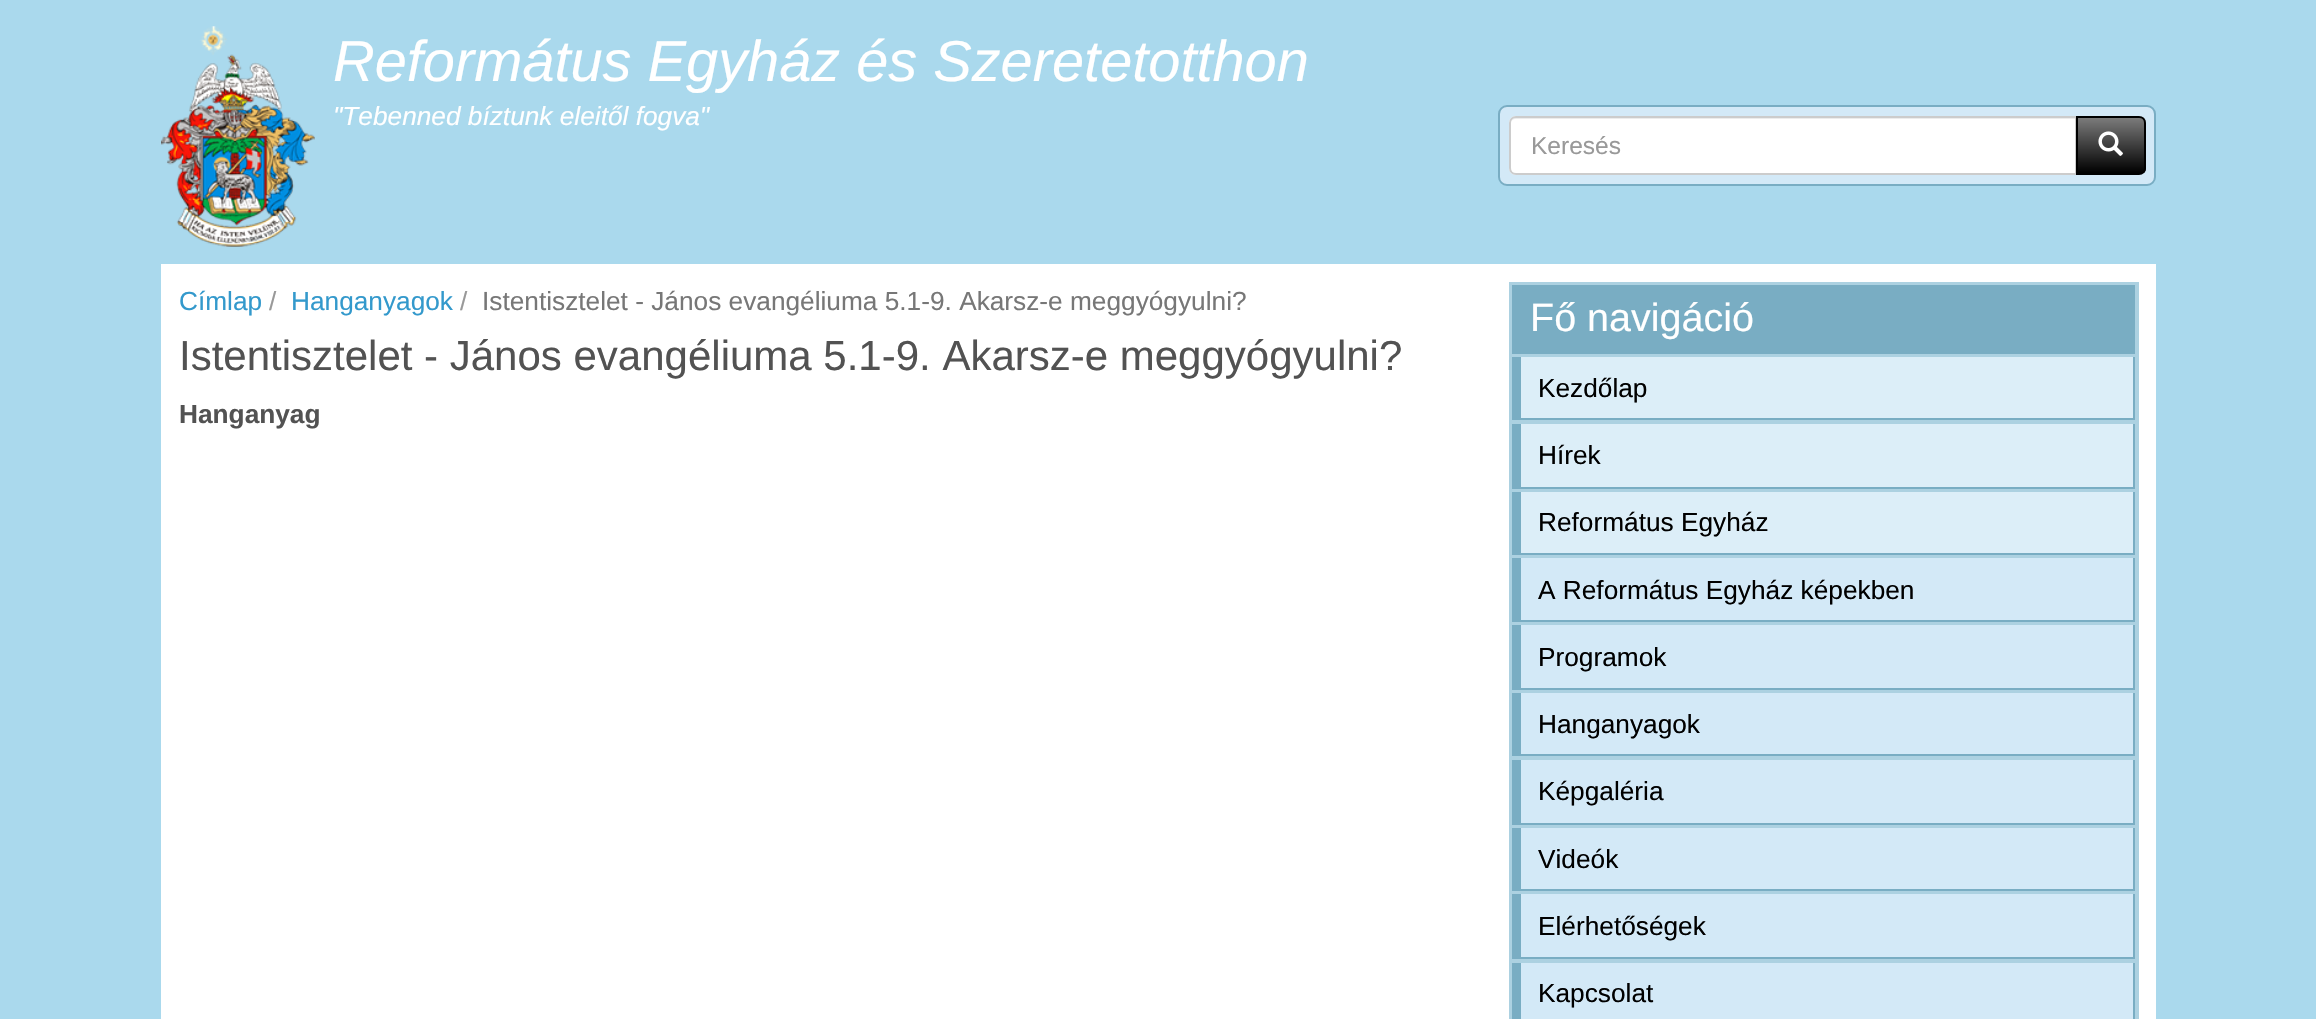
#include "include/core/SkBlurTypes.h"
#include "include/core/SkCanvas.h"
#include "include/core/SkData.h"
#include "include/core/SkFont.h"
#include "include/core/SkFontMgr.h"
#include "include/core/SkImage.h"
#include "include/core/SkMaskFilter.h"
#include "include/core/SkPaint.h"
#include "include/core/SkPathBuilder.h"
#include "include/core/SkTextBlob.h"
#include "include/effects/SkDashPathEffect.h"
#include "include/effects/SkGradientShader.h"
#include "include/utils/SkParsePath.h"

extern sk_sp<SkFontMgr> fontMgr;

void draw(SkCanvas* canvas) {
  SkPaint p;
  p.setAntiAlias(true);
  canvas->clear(SkColorSetRGB(170, 217, 237));
  canvas->drawImageRect(SkImages::DeferredFromEncodedData(SkData::MakeFromFileName("images/1.png")), SkRect::MakeLTRB(161, 26, 315, 247), SkSamplingOptions());
  p.setColor(SkColorSetRGB(211, 233, 247));
  canvas->drawRoundRect(SkRect::MakeLTRB(1499, 106, 2155, 185), 8, 8, p);
  p.setStyle(SkPaint::kStroke_Style);
  p.setStrokeWidth(2);
  p.setColor(SkColorSetRGB(121, 173, 195));
  canvas->drawRoundRect(SkRect::MakeLTRB(1499, 106, 2155, 185), 8, 8, p);
  p.setStyle(SkPaint::kFill_Style);
  p.setColor(SK_ColorWHITE);
  canvas->drawPath(SkPathBuilder().moveTo(1516, 116).lineTo(2077, 116).lineTo(2077, 175).lineTo(1516, 175).cubicTo(1512, 175, 1509, 172, 1509, 168).lineTo(1509, 123).cubicTo(1509, 119, 1512, 116, 1516, 116).close().detach(), p);
  p.setColor(SkColorSetRGB(236, 236, 236));
  canvas->drawPath(SkPathBuilder().moveTo(1516, 119).lineTo(2076, 119).lineTo(2076, 117).lineTo(1515, 117).cubicTo(1511, 117, 1510, 121, 1510, 124).cubicTo(1510, 121, 1513, 119, 1516, 119).close().detach(), p);
  p.setStyle(SkPaint::kStroke_Style);
  p.setColor(SkColorSetRGB(204, 204, 204));
  canvas->drawPath(SkPathBuilder().moveTo(1516, 117).lineTo(2076, 117).lineTo(2076, 174).lineTo(1516, 174).cubicTo(1512.5f, 174, 1510, 171.5f, 1510, 168).lineTo(1510, 123).cubicTo(1510, 119.5f, 1512.5f, 117, 1516, 117).close().detach(), p);
  canvas->save();
  canvas->clipPath(SkPathBuilder().moveTo(2076, 116).lineTo(2139, 116).cubicTo(2143, 116, 2146, 119, 2146, 123).lineTo(2146, 168).cubicTo(2146, 172, 2143, 175, 2139, 175).lineTo(2076, 175).close().detach(), true);
  p.setStyle(SkPaint::kFill_Style);
  {
    const SkColor colors[] = {SkColorSetRGB(125, 125, 125), SK_ColorBLACK};
    const float stops[] = {0, 1};
    const SkPoint ends[] = {{2111, 117}, {2111, 173}};
    p.setShader(SkGradientShader::MakeLinear(ends, colors, stops, 2, SkTileMode::kClamp));
    p.setAlpha(255);
  }
  canvas->drawRect(SkRect::MakeLTRB(2078, 117, 2146, 173), p);
  canvas->restore();
  p.setStyle(SkPaint::kStroke_Style);
  p.setShader(nullptr);
  p.setColor(SK_ColorBLACK);
  canvas->drawPath(SkPathBuilder().moveTo(2077, 117).lineTo(2139, 117).cubicTo(2142.5f, 117, 2145, 119.5f, 2145, 123).lineTo(2145, 168).cubicTo(2145, 171.5f, 2142.5f, 174, 2139, 174).lineTo(2077, 174).close().detach(), p);
  canvas->drawImageRect(SkImages::DeferredFromEncodedData(SkData::MakeFromFileName("images/2.png")), SkRect::MakeLTRB(2098, 131, 2123, 156), SkSamplingOptions());
  p.setStyle(SkPaint::kFill_Style);
  p.setColor(SK_ColorWHITE);
  canvas->drawRect(SkRect::MakeLTRB(161, 264, 2156, 1019), p);
  p.setColor(SkColorSetRGB(172, 209, 225));
  canvas->drawRect(SkRect::MakeLTRB(1509, 282, 2139, 1019), p);
  p.setColor(SkColorSetRGB(121, 173, 195));
  canvas->drawRect(SkRect::MakeLTRB(1512, 285, 2135, 354), p);
  p.setColor(SkColorSetRGB(220, 238, 248));
  canvas->drawRect(SkRect::MakeLTRB(1521, 357, 2133, 418), p);
  p.setColor(SkColorSetRGB(121, 173, 195));
  canvas->drawRect(SkRect::MakeLTRB(2133, 357, 2135, 420), p);
  canvas->drawRect(SkRect::MakeLTRB(1521, 418, 2135, 420), p);
  canvas->drawRect(SkRect::MakeLTRB(1512, 357, 1521, 420), p);
  p.setColor(SkColorSetRGB(220, 238, 248));
  canvas->drawRect(SkRect::MakeLTRB(1521, 424, 2133, 487), p);
  p.setColor(SkColorSetRGB(121, 173, 195));
  canvas->drawRect(SkRect::MakeLTRB(2133, 424, 2135, 488), p);
  canvas->drawRect(SkRect::MakeLTRB(1512, 487, 2135, 489), p);
  canvas->drawRect(SkRect::MakeLTRB(1512, 424, 1521, 487), p);
  p.setColor(SkColorSetRGB(220, 238, 248));
  canvas->drawRect(SkRect::MakeLTRB(1521, 492, 2133, 553), p);
  p.setColor(SkColorSetRGB(121, 173, 195));
  canvas->drawRect(SkRect::MakeLTRB(2133, 492, 2135, 555), p);
  canvas->drawRect(SkRect::MakeLTRB(1521, 553, 2135, 555), p);
  canvas->drawRect(SkRect::MakeLTRB(1512, 492, 1521, 555), p);
  p.setColor(SkColorSetRGB(211, 233, 247));
  canvas->drawRect(SkRect::MakeLTRB(1521, 558, 2133, 620), p);
  p.setColor(SkColorSetRGB(121, 173, 195));
  canvas->drawRect(SkRect::MakeLTRB(2133, 558, 2135, 621), p);
  canvas->drawRect(SkRect::MakeLTRB(1512, 620, 2135, 622), p);
  canvas->drawRect(SkRect::MakeLTRB(1512, 558, 1521, 620), p);
  p.setColor(SkColorSetRGB(211, 233, 247));
  canvas->drawRect(SkRect::MakeLTRB(1521, 625, 2133, 688), p);
  p.setColor(SkColorSetRGB(121, 173, 195));
  canvas->drawRect(SkRect::MakeLTRB(2133, 625, 2135, 690), p);
  canvas->drawRect(SkRect::MakeLTRB(1521, 688, 2135, 690), p);
  canvas->drawRect(SkRect::MakeLTRB(1512, 625, 1521, 690), p);
  p.setColor(SkColorSetRGB(211, 233, 247));
  canvas->drawRect(SkRect::MakeLTRB(1521, 693, 2133, 754), p);
  p.setColor(SkColorSetRGB(121, 173, 195));
  canvas->drawRect(SkRect::MakeLTRB(2133, 693, 2135, 756), p);
  canvas->drawRect(SkRect::MakeLTRB(1521, 754, 2135, 756), p);
  canvas->drawRect(SkRect::MakeLTRB(1512, 693, 1521, 756), p);
  p.setColor(SkColorSetRGB(211, 233, 247));
  canvas->drawRect(SkRect::MakeLTRB(1521, 760, 2133, 823), p);
  p.setColor(SkColorSetRGB(121, 173, 195));
  canvas->drawRect(SkRect::MakeLTRB(2133, 760, 2135, 824), p);
  canvas->drawRect(SkRect::MakeLTRB(1512, 823, 2135, 825), p);
  canvas->drawRect(SkRect::MakeLTRB(1512, 760, 1521, 823), p);
  p.setColor(SkColorSetRGB(211, 233, 247));
  canvas->drawRect(SkRect::MakeLTRB(1521, 828, 2133, 889), p);
  p.setColor(SkColorSetRGB(121, 173, 195));
  canvas->drawRect(SkRect::MakeLTRB(2133, 828, 2135, 891), p);
  canvas->drawRect(SkRect::MakeLTRB(1521, 889, 2135, 891), p);
  canvas->drawRect(SkRect::MakeLTRB(1512, 828, 1521, 891), p);
  p.setColor(SkColorSetRGB(211, 233, 247));
  canvas->drawRect(SkRect::MakeLTRB(1521, 894, 2133, 957), p);
  p.setColor(SkColorSetRGB(121, 173, 195));
  canvas->drawRect(SkRect::MakeLTRB(2133, 894, 2135, 959), p);
  canvas->drawRect(SkRect::MakeLTRB(1521, 957, 2135, 959), p);
  canvas->drawRect(SkRect::MakeLTRB(1512, 894, 1521, 959), p);
  p.setColor(SkColorSetRGB(211, 233, 247));
  canvas->drawRect(SkRect::MakeLTRB(1521, 963, 2133, 1019), p);
  p.setColor(SkColorSetRGB(121, 173, 195));
  canvas->drawRect(SkRect::MakeLTRB(2133, 963, 2135, 1019), p);
  canvas->drawRect(SkRect::MakeLTRB(1512, 963, 1521, 1019), p);
  SkFont font1(fontMgr->matchFamilyStyle("Liberation Sans", SkFontStyle::Italic()), 57.75f);
  font1.setSubpixel(true);
  p.setColor(SK_ColorWHITE);
  canvas->drawString("Református Egyház és Szeretetotthon", 333, 81, font1, p);
  SkFont font2(fontMgr->matchFamilyStyle("Liberation Sans", SkFontStyle::Italic()), 26.25f);
  font2.setSubpixel(true);
  canvas->drawString("\"Tebenned bíztunk eleitől fogva\"", 333, 125, font2, p);
  SkFont font3(fontMgr->matchFamilyStyle("Liberation Sans", SkFontStyle::Normal()), 24.5f);
  font3.setSubpixel(true);
  p.setColor(SkColorSetRGB(153, 153, 153));
  canvas->drawString("Keresés", 1531, 154, font3, p);
  SkFont font4(fontMgr->matchFamilyStyle("Liberation Sans", SkFontStyle::Normal()), 26.25f);
  font4.setSubpixel(true);
  p.setColor(SkColorSetRGB(51, 153, 204));
  canvas->drawString("Címlap", 179, 310, font4, p);
  p.setColor(SkColorSetRGB(153, 153, 153));
  canvas->drawString("/", 269, 310, font4, p);
  p.setColor(SkColorSetRGB(51, 153, 204));
  canvas->drawString("Hanganyagok", 291, 310, font4, p);
  p.setColor(SkColorSetRGB(153, 153, 153));
  canvas->drawString("/", 460, 310, font4, p);
  p.setColor(SkColorSetRGB(119, 119, 119));
  canvas->drawString("Istentisztelet - János evangéliuma 5.1-9. Akarsz-e meggyógyulni?", 482, 310, font4, p);
  SkFont font5(fontMgr->matchFamilyStyle("Liberation Sans", SkFontStyle::Normal()), 42);
  font5.setSubpixel(true);
  p.setColor(SkColorSetRGB(82, 82, 82));
  canvas->drawString("Istentisztelet - János evangéliuma 5.1-9. Akarsz-e meggyógyulni?", 179, 370, font5, p);
  SkFont font6(fontMgr->matchFamilyStyle("Liberation Sans", SkFontStyle::Bold()), 26.25f);
  font6.setSubpixel(true);
  canvas->drawString("Hanganyag", 179, 423, font6, p);
  SkFont font7(fontMgr->matchFamilyStyle("Liberation Sans", SkFontStyle::Normal()), 39.5f);
  font7.setSubpixel(true);
  p.setColor(SK_ColorWHITE);
  canvas->drawString("Fő navigáció", 1530, 331, font7, p);
  p.setColor(SK_ColorBLACK);
  canvas->drawString("Kezdőlap", 1538, 397, font4, p);
  canvas->drawString("Hírek", 1538, 464, font4, p);
  canvas->drawString("Református Egyház", 1538, 531, font4, p);
  canvas->drawString("A Református Egyház képekben", 1538, 599, font4, p);
  canvas->drawString("Programok", 1538, 666, font4, p);
  canvas->drawString("Hanganyagok", 1538, 733, font4, p);
  canvas->drawString("Képgaléria", 1538, 800, font4, p);
  canvas->drawString("Videók", 1538, 868, font4, p);
  canvas->drawString("Elérhetőségek", 1538, 935, font4, p);
  canvas->drawString("Kapcsolat", 1538, 1002, font4, p);
}
